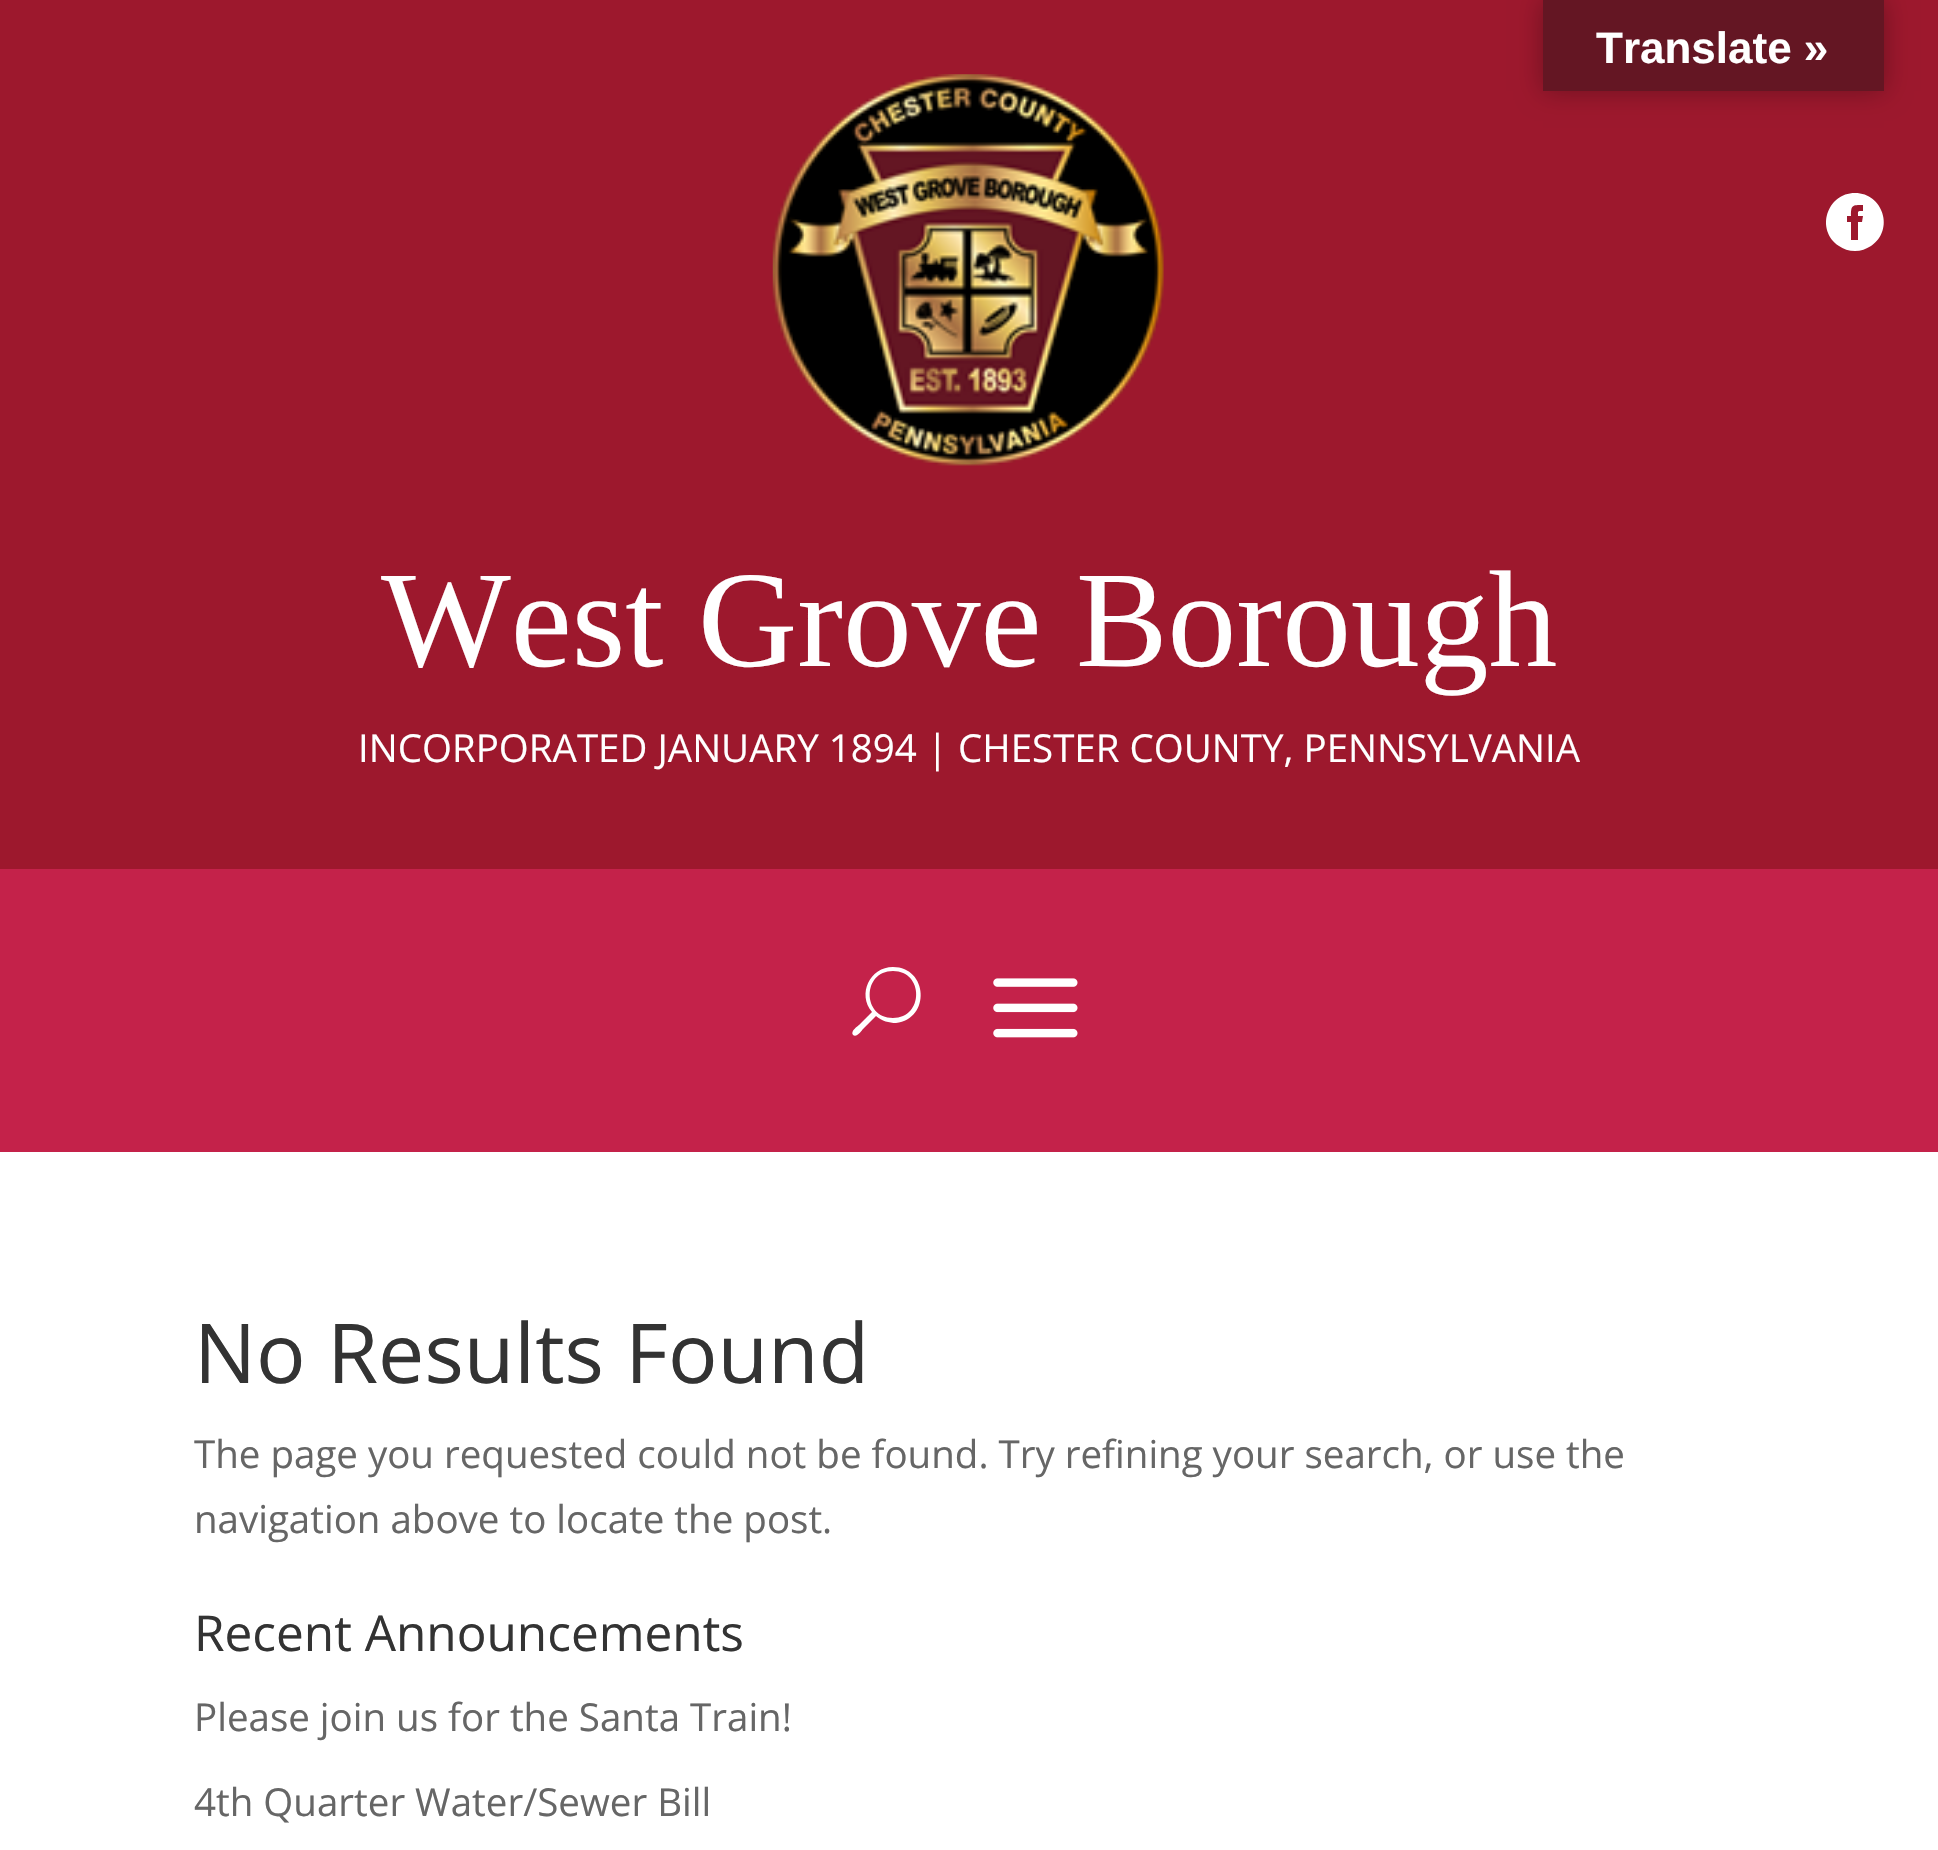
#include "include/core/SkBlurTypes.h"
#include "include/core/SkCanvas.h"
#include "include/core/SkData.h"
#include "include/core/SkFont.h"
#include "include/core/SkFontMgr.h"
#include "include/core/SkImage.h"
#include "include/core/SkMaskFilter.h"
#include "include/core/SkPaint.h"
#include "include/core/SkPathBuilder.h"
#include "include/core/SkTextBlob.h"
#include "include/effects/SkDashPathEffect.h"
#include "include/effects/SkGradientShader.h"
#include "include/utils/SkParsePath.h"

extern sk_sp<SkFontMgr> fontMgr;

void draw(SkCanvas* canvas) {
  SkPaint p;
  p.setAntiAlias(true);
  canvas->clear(SK_ColorWHITE);
  p.setColor(SkColorSetRGB(157, 24, 45));
  canvas->drawRect(SkRect::MakeLTRB(0, 0, 1938, 869), p);
  p.setColor(SkColorSetARGB(77, 0, 0, 0));
  p.setMaskFilter(SkMaskFilter::MakeBlur(kNormal_SkBlurStyle, 12.5f));
  canvas->drawRect(SkRect::MakeLTRB(1543, 0, 1884, 91), p);
  p.setMaskFilter(nullptr);
  p.setColor(SkColorSetRGB(100, 22, 35));
  canvas->drawRect(SkRect::MakeLTRB(1543, 0, 1884, 91), p);
  p.setColor(SkColorSetRGB(196, 34, 74));
  canvas->drawRect(SkRect::MakeLTRB(0, 869, 1938, 1152), p);
  p.setColor(SK_ColorWHITE);
  canvas->drawPath(SkPathBuilder().moveTo(1855, 193).cubicTo(1827, 193, 1815, 230, 1839, 246).cubicTo(1843, 249, 1849, 251, 1855, 251).cubicTo(1861, 251, 1866, 249, 1871, 246).cubicTo(1895, 230, 1883, 193, 1855, 193).close().moveTo(1862, 222).lineTo(1858, 222).lineTo(1858, 240).lineTo(1851, 240).lineTo(1851, 222).lineTo(1847, 222).lineTo(1847, 216).lineTo(1851, 216).cubicTo(1851, 205, 1852, 205, 1863, 205).lineTo(1863, 211).cubicTo(1857, 211, 1858, 211, 1858, 216).lineTo(1863, 216).close().detach(), p);
  canvas->drawPath(SkPathBuilder().moveTo(893, 967).cubicTo(870, 967, 857, 994, 872, 1012).lineTo(859, 1025).cubicTo(858, 1026, 850, 1031, 853, 1035).cubicTo(857, 1038, 862, 1030, 863, 1029).lineTo(876, 1016).cubicTo(882, 1021, 889, 1023, 896, 1023).cubicTo(931, 1019, 928, 967, 893, 967).close().moveTo(893, 1018).cubicTo(862, 1018, 862, 971, 893, 971).cubicTo(924, 971, 924, 1018, 893, 1018).close().detach(), p);
  canvas->drawImageRect(SkImages::DeferredFromEncodedData(SkData::MakeFromFileName("images/1.png")), SkRect::MakeLTRB(993, 978, 1078, 1038), SkSamplingOptions());
  canvas->drawImageRect(SkImages::DeferredFromEncodedData(SkData::MakeFromFileName("images/2.png")), SkRect::MakeLTRB(772, 74, 1164, 466), SkSamplingOptions());
  SkFont font1(fontMgr->matchFamilyStyle("Liberation Sans", SkFontStyle::Bold()), 44);
  font1.setSubpixel(true);
  canvas->drawString("Translate »", 1596, 63, font1, p);
  SkFont font2(fontMgr->matchFamilyStyle("Liberation Serif", SkFontStyle::Normal()), 137.5f);
  font2.setSubpixel(true);
  canvas->drawString("West Grove Borough", 381, 666, font2, p);
  SkFont font3(fontMgr->matchFamilyStyle("Open Sans", SkFontStyle::Normal()), 38.5f);
  font3.setSubpixel(true);
  canvas->drawString("INCORPORATED JANUARY 1894 | CHESTER COUNTY, PENNSYLVANIA", 358, 762, font3, p);
  SkFont font4(fontMgr->matchFamilyStyle("Open Sans", SkFontStyle::Normal()), 82.5f);
  font4.setSubpixel(true);
  p.setColor(SkColorSetRGB(51, 51, 51));
  canvas->drawString("No Results Found", 194, 1383, font4, p);
  p.setColor(SkColorSetRGB(102, 102, 102));
  canvas->drawString("The page you requested could not be found. Try refining your search, or use the", 194, 1468, font3, p);
  canvas->drawString("navigation above to locate the post.", 194, 1533, font3, p);
  SkFont font5(fontMgr->matchFamilyStyle("Open Sans", SkFontStyle::Normal()), 49.5f);
  font5.setSubpixel(true);
  p.setColor(SkColorSetRGB(51, 51, 51));
  canvas->drawString("Recent Announcements", 194, 1651, font5, p);
  p.setColor(SkColorSetRGB(102, 102, 102));
  canvas->drawString("Please join us for the Santa Train!", 194, 1731, font3, p);
  canvas->drawString("4th Quarter Water/Sewer Bill", 194, 1816, font3, p);
}
